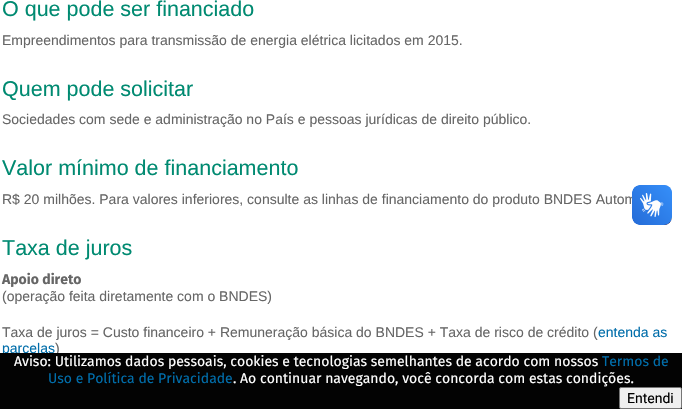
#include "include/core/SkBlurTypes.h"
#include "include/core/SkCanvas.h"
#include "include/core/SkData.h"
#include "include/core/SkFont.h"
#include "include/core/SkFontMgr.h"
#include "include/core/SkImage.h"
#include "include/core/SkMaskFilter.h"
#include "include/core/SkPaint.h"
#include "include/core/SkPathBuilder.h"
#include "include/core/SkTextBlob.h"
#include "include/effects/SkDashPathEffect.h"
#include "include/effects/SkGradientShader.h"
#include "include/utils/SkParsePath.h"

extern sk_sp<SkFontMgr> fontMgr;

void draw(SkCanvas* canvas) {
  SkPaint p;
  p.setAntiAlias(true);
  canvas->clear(SK_ColorWHITE);
  SkFont font1(fontMgr->matchFamilyStyle("Liberation Sans", SkFontStyle::Normal()), 21.5f);
  font1.setSubpixel(true);
  p.setColor(SkColorSetRGB(0, 138, 113));
  canvas->drawString("O que pode ser financiado", 2, 16, font1, p);
  SkFont font2(fontMgr->matchFamilyStyle("Liberation Sans", SkFontStyle::Normal()), 14);
  font2.setSubpixel(true);
  p.setColor(SkColorSetRGB(102, 102, 102));
  canvas->drawString("Empreendimentos para transmissão de energia elétrica licitados em 2015.", 2, 45, font2, p);
  p.setColor(SkColorSetRGB(0, 138, 113));
  canvas->drawString("Quem pode solicitar", 2, 96, font1, p);
  p.setColor(SkColorSetRGB(102, 102, 102));
  canvas->drawString("Sociedades com sede e administração no País e pessoas jurídicas de direito público.", 2, 124, font2, p);
  p.setColor(SkColorSetRGB(0, 138, 113));
  canvas->drawString("Valor mínimo de financiamento", 2, 175, font1, p);
  p.setColor(SkColorSetRGB(102, 102, 102));
  canvas->drawString("R$ 20 milhões. Para valores inferiores, consulte as linhas de financiamento do produto BNDES Autom", 2, 204, font2, p);
  p.setColor(SkColorSetRGB(0, 138, 113));
  canvas->drawString("Taxa de juros", 2, 255, font1, p);
  SkFont font3(fontMgr->matchFamilyStyle("Fira Sans", SkFontStyle::Bold()), 14);
  font3.setSubpixel(true);
  p.setColor(SkColorSetRGB(102, 102, 102));
  canvas->drawString("Apoio direto", 2, 284, font3, p);
  canvas->drawString("(operação feita diretamente com o BNDES)", 2, 301, font2, p);
  canvas->drawString("Taxa de juros = Custo financeiro + Remuneração básica do BNDES + Taxa de risco de crédito (", 2, 337, font2, p);
  p.setColor(SkColorSetRGB(0, 109, 170));
  canvas->drawString("entenda as", 598, 337, font2, p);
  canvas->drawString("parcelas", 2, 353, font2, p);
  p.setColor(SkColorSetRGB(102, 102, 102));
  canvas->drawString(")", 55, 353, font2, p);
  canvas->drawImageRect(SkImages::DeferredFromEncodedData(SkData::MakeFromFileName("images/1.png")), SkRect::MakeLTRB(632, 185, 672, 225), SkSamplingOptions());
  canvas->drawImageRect(SkImages::DeferredFromEncodedData(SkData::MakeFromFileName("images/2.png")), SkRect::MakeLTRB(632, 185, 672, 225), SkSamplingOptions());
  p.setColor(SkColorSetRGB(3, 3, 3));
  canvas->drawRect(SkRect::MakeLTRB(0, 353, 682, 409), p);
  SkFont font4(fontMgr->matchFamilyStyle("Fira Sans", SkFontStyle::Normal()), 14);
  font4.setSubpixel(true);
  p.setColor(SK_ColorWHITE);
  canvas->drawString("Aviso: Utilizamos dados pessoais, cookies e tecnologias semelhantes de acordo com nossos", 14, 366, font4, p);
  p.setColor(SkColorSetRGB(0, 109, 170));
  canvas->drawString("Termos de", 602, 366, font4, p);
  canvas->drawString("Uso e Política de Privacidade", 48, 383, font4, p);
  p.setColor(SK_ColorWHITE);
  canvas->drawString(". Ao continuar navegando, você concorda com estas condições.", 233, 383, font4, p);
  p.setColor(SkColorSetRGB(239, 239, 239));
  canvas->drawRoundRect(SkRect::MakeLTRB(619.5f, 387.5f, 681.5f, 408.5f), 1.5f, 1.5f, p);
  p.setStyle(SkPaint::kStroke_Style);
  p.setStrokeWidth(1);
  p.setColor(SkColorSetRGB(118, 118, 118));
  canvas->drawRoundRect(SkRect::MakeLTRB(619.5f, 387.5f, 681.5f, 408.5f), 1.5f, 1.5f, p);
  SkFont font5(fontMgr->matchFamilyStyle("Roboto", SkFontStyle::Normal()), 14);
  font5.setSubpixel(true);
  p.setStyle(SkPaint::kFill_Style);
  p.setColor(SK_ColorBLACK);
  canvas->drawString("Entendi", 627, 403, font5, p);
}
